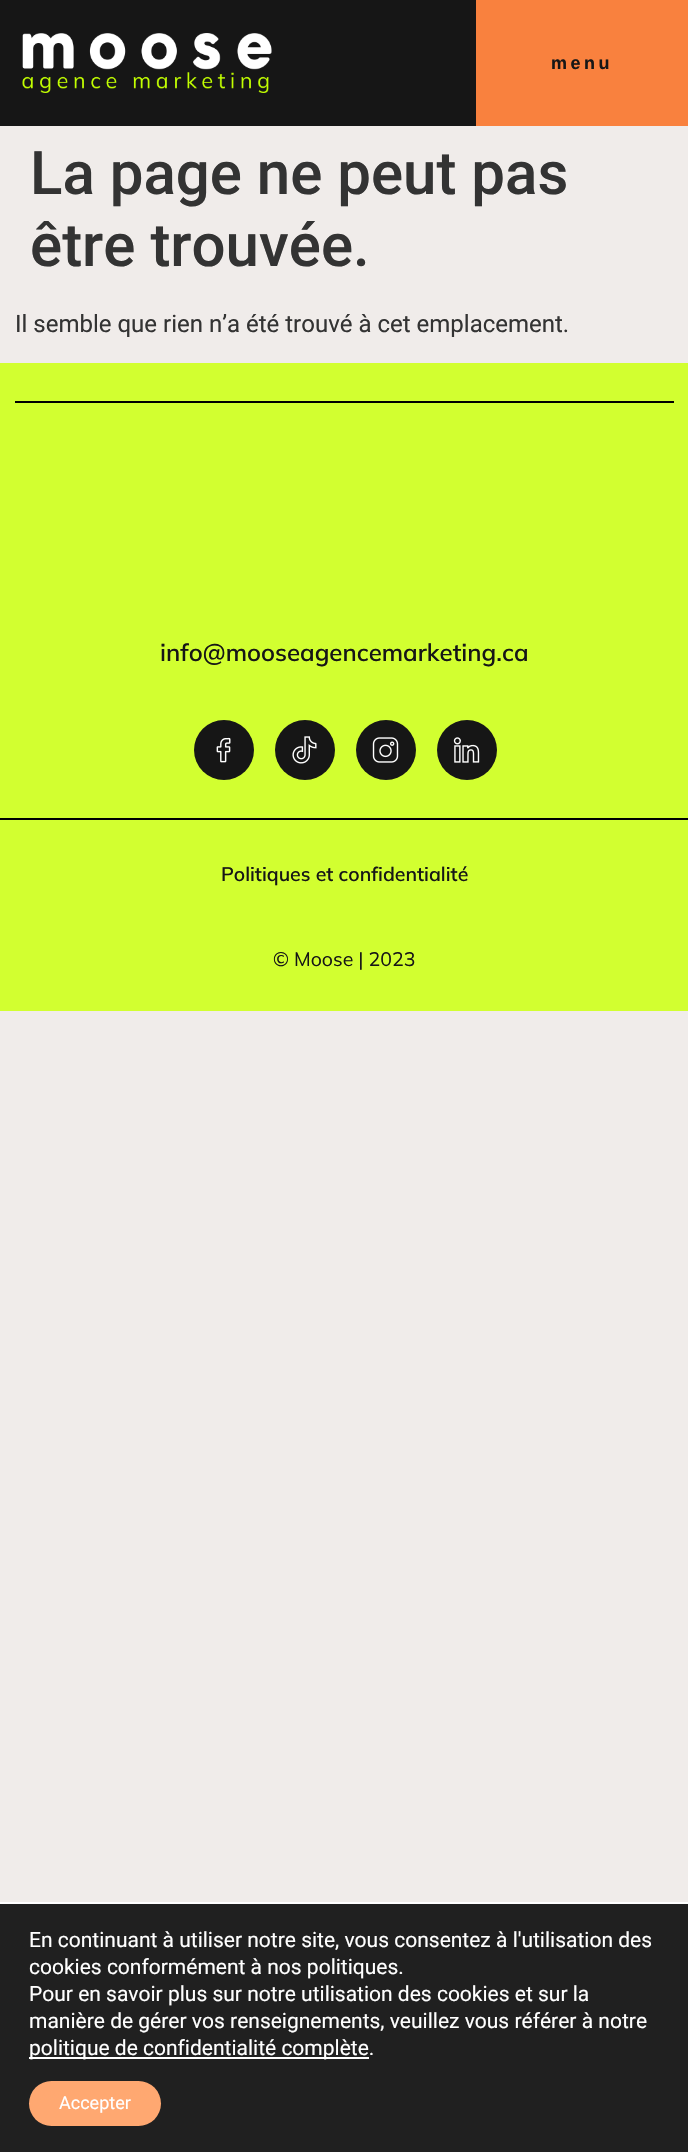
#include "include/core/SkBlurTypes.h"
#include "include/core/SkCanvas.h"
#include "include/core/SkData.h"
#include "include/core/SkFont.h"
#include "include/core/SkFontMgr.h"
#include "include/core/SkImage.h"
#include "include/core/SkMaskFilter.h"
#include "include/core/SkPaint.h"
#include "include/core/SkPathBuilder.h"
#include "include/core/SkTextBlob.h"
#include "include/effects/SkDashPathEffect.h"
#include "include/effects/SkGradientShader.h"
#include "include/utils/SkParsePath.h"

extern sk_sp<SkFontMgr> fontMgr;

void draw(SkCanvas* canvas) {
  SkPaint p;
  p.setAntiAlias(true);
  auto spacedText = [&](const char* s, float x, float y, const SkFont& font, const SkPaint& ink, float letter, float word) {
    std::vector<SkGlyphID> glyphs(font.countText(s, strlen(s), SkTextEncoding::kUTF8));
    std::vector<float> xs(glyphs.size());
    font.textToGlyphs(s, strlen(s), SkTextEncoding::kUTF8, glyphs);
    font.getXPos(glyphs, xs, x);
    float extra = 0;
    for (size_t i = 0; i < glyphs.size(); i++) {
      xs[i] += extra;
      extra += letter + word * (glyphs[i] == font.unicharToGlyph(' '));
    }
    canvas->drawTextBlob(SkTextBlob::MakeFromPosHGlyphs(glyphs, xs, y, font), 0, 0, ink);
  };
  canvas->clear(SkColorSetRGB(240, 236, 234));
  p.setColor(SkColorSetRGB(249, 129, 62));
  canvas->drawRect(SkRect::MakeLTRB(476, 0, 688, 126), p);
  p.setColor(SkColorSetRGB(22, 22, 22));
  canvas->drawRect(SkRect::MakeLTRB(0, 0, 476, 126), p);
  canvas->drawImageRect(SkImages::DeferredFromEncodedData(SkData::MakeFromFileName("images/1.png")), SkRect::MakeLTRB(22, 33, 272, 93), SkSamplingOptions());
  p.setColor(SkColorSetRGB(210, 255, 48));
  canvas->drawRect(SkRect::MakeLTRB(0, 363, 688, 1011), p);
  p.setColor(SK_ColorBLACK);
  canvas->drawRect(SkRect::MakeLTRB(15, 401, 674, 403), p);
  p.setColor(SkColorSetRGB(22, 22, 22));
  canvas->drawCircle(224, 750, 30, p);
  canvas->drawImageRect(SkImages::DeferredFromEncodedData(SkData::MakeFromFileName("images/2.png")), SkRect::MakeLTRB(216, 737, 231, 763), SkSamplingOptions());
  canvas->drawCircle(305, 750, 30, p);
  canvas->drawImageRect(SkImages::DeferredFromEncodedData(SkData::MakeFromFileName("images/3.png")), SkRect::MakeLTRB(292, 736, 317, 764), SkSamplingOptions());
  canvas->drawCircle(386, 750, 30, p);
  canvas->drawImageRect(SkImages::DeferredFromEncodedData(SkData::MakeFromFileName("images/4.png")), SkRect::MakeLTRB(372, 737, 399, 763), SkSamplingOptions());
  canvas->drawCircle(467, 750, 30, p);
  canvas->drawImageRect(SkImages::DeferredFromEncodedData(SkData::MakeFromFileName("images/5.png")), SkRect::MakeLTRB(453, 737, 480, 763), SkSamplingOptions());
  p.setColor(SK_ColorBLACK);
  canvas->drawRect(SkRect::MakeLTRB(0, 818, 688, 820), p);
  p.setColor(SkColorSetRGB(32, 32, 32));
  canvas->drawRect(SkRect::MakeLTRB(0, 1904, 688, 2152), p);
  p.setColor(SK_ColorWHITE);
  canvas->drawRect(SkRect::MakeLTRB(0, 1902, 688, 1904), p);
  canvas->drawRect(SkRect::MakeLTRB(29, 2057, 369, 2059), p);
  p.setColor(SkColorSetRGB(255, 168, 113));
  canvas->drawRoundRect(SkRect::MakeLTRB(29, 2081, 161, 2126), 22.5f, 22.5f, p);
  SkFont font1(fontMgr->matchFamilyStyle("Liberation Sans", SkFontStyle::Bold()), 18);
  font1.setSubpixel(true);
  p.setColor(SkColorSetRGB(22, 22, 22));
  spacedText("menu", 551, 69, font1, p, 3.5f, 0);
  SkFont font2(fontMgr->matchFamilyStyle("Roboto", SkFontStyle(500, SkFontStyle::kNormal_Width, SkFontStyle::kUpright_Slant)), 60);
  font2.setSubpixel(true);
  p.setColor(SkColorSetRGB(51, 51, 51));
  canvas->drawString("La page ne peut pas", 30, 194, font2, p);
  canvas->drawString("être trouvée.", 30, 266, font2, p);
  SkFont font3(fontMgr->matchFamilyStyle("Roboto", SkFontStyle::Normal()), 24);
  font3.setSubpixel(true);
  canvas->drawString("Il semble que rien n’a été trouvé à cet emplacement.", 15, 332, font3, p);
  SkFont font4(fontMgr->matchFamilyStyle("Mulish", SkFontStyle(600, SkFontStyle::kNormal_Width, SkFontStyle::kUpright_Slant)), 24);
  font4.setSubpixel(true);
  p.setColor(SkColorSetRGB(22, 22, 22));
  canvas->drawString("info@mooseagencemarketing.ca", 160, 661, font4, p);
  SkFont font5(fontMgr->matchFamilyStyle("Mulish", SkFontStyle(600, SkFontStyle::kNormal_Width, SkFontStyle::kUpright_Slant)), 19.5f);
  font5.setSubpixel(true);
  canvas->drawString("Politiques et confidentialité", 221, 881, font5, p);
  SkFont font6(fontMgr->matchFamilyStyle("Mulish", SkFontStyle::Normal()), 19.5f);
  font6.setSubpixel(true);
  canvas->drawString("© Moose | 2023", 273, 966, font6, p);
  SkFont font7(fontMgr->matchFamilyStyle("Roboto", SkFontStyle::Normal()), 21);
  font7.setSubpixel(true);
  p.setColor(SK_ColorWHITE);
  canvas->drawString("En continuant à utiliser notre site, vous consentez à l'utilisation des", 29, 1947, font7, p);
  canvas->drawString("cookies conformément à nos politiques.", 29, 1974, font7, p);
  canvas->drawString("Pour en savoir plus sur notre utilisation des cookies et sur la", 29, 2001, font7, p);
  canvas->drawString("manière de gérer vos renseignements, veuillez vous référer à notre", 29, 2028, font7, p);
  canvas->drawString("politique de confidentialité complète.", 29, 2055, font7, p);
  SkFont font8(fontMgr->matchFamilyStyle("Roboto", SkFontStyle::Normal()), 18);
  font8.setSubpixel(true);
  canvas->drawString("Accepter", 59, 2109, font8, p);
}
